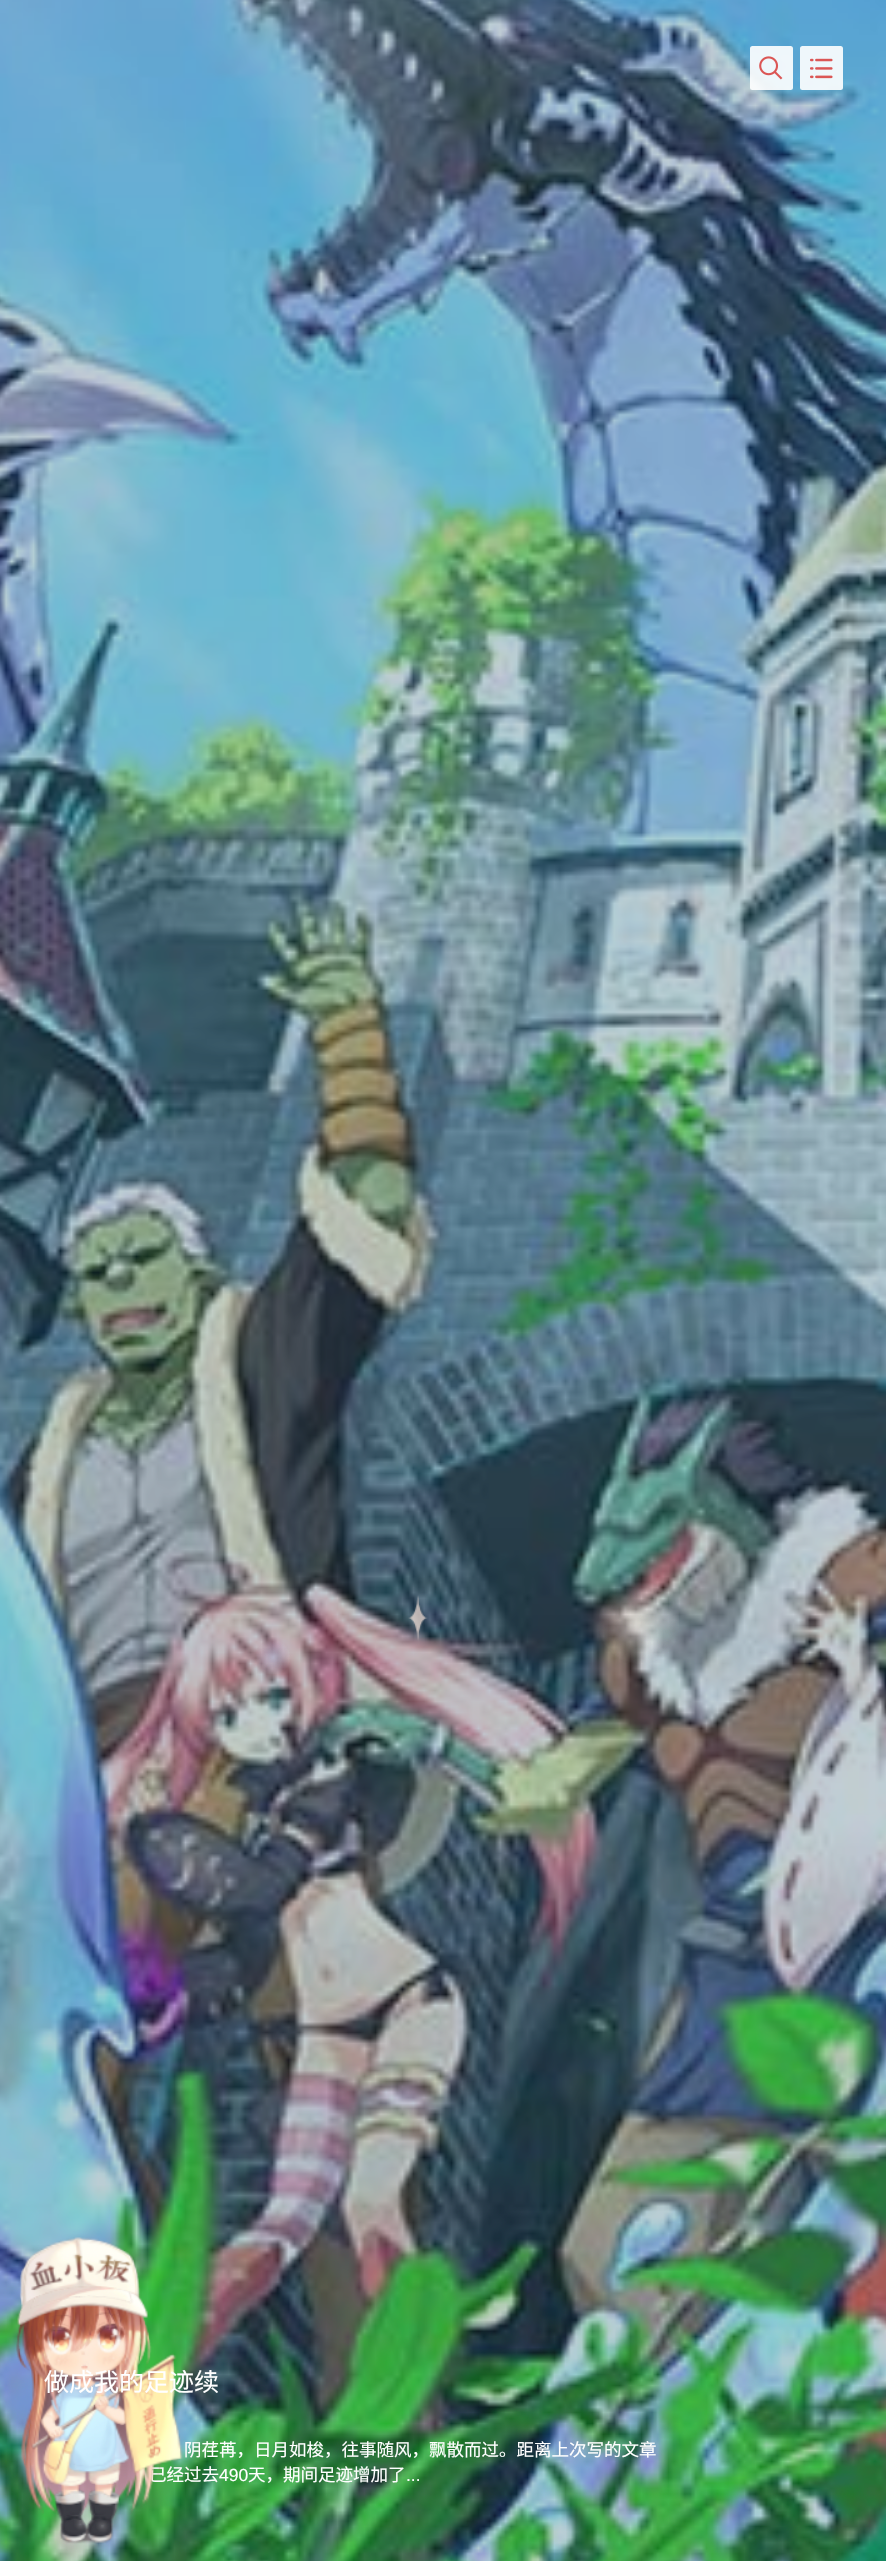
#include "include/core/SkBlurTypes.h"
#include "include/core/SkCanvas.h"
#include "include/core/SkData.h"
#include "include/core/SkFont.h"
#include "include/core/SkFontMgr.h"
#include "include/core/SkImage.h"
#include "include/core/SkMaskFilter.h"
#include "include/core/SkPaint.h"
#include "include/core/SkPathBuilder.h"
#include "include/core/SkTextBlob.h"
#include "include/effects/SkDashPathEffect.h"
#include "include/effects/SkGradientShader.h"
#include "include/utils/SkParsePath.h"

extern sk_sp<SkFontMgr> fontMgr;

void draw(SkCanvas* canvas) {
  SkPaint p;
  p.setAntiAlias(true);
  canvas->clear(SK_ColorWHITE);
  canvas->drawImageRect(SkImages::DeferredFromEncodedData(SkData::MakeFromFileName("images/3.png")), SkRect::MakeLTRB(0, 0, 886, 2561), SkSamplingOptions());
  canvas->drawImageRect(SkImages::DeferredFromEncodedData(SkData::MakeFromFileName("images/2.png")), SkRect::MakeLTRB(256, 1582, 679, 1674), SkSamplingOptions());
  p.setColor(SkColorSetARGB(230, 255, 255, 255));
  canvas->drawRoundRect(SkRect::MakeLTRB(750, 46, 793, 90), 2.5f, 2.5f, p);
  canvas->drawImageRect(SkImages::DeferredFromEncodedData(SkData::MakeFromFileName("images/4.png")), SkRect::MakeLTRB(759, 56, 783, 80), SkSamplingOptions());
  canvas->drawRoundRect(SkRect::MakeLTRB(800, 46, 843, 90), 2.5f, 2.5f, p);
  canvas->drawImageRect(SkImages::DeferredFromEncodedData(SkData::MakeFromFileName("images/5.png")), SkRect::MakeLTRB(810, 58, 833, 79), SkSamplingOptions());
  SkFont font1(fontMgr->matchFamilyStyle("Noto Sans CJK SC", SkFontStyle::Normal()), 17.5f);
  font1.setSubpixel(true);
  p.setColor(SK_ColorWHITE);
  canvas->drawString("阴荏苒，日月如梭，往事随风，飘散而过。距离上次写的文章", 184, 2456, font1, p);
  canvas->drawString("已经过去", 149, 2481, font1, p);
  canvas->drawImageRect(SkImages::DeferredFromEncodedData(SkData::MakeFromFileName("images/1.png")), SkRect::MakeLTRB(16, 2237, 183, 2544), SkSamplingOptions());
  SkFont font2(fontMgr->matchFamilyStyle("Noto Sans CJK SC", SkFontStyle::Normal()), 25);
  font2.setSubpixel(true);
  canvas->drawString("做成我的足迹续", 44, 2391, font2, p);
  SkFont font3(fontMgr->matchFamilyStyle("Liberation Sans", SkFontStyle::Normal()), 17.5f);
  font3.setSubpixel(true);
  canvas->drawString("490", 219, 2481, font3, p);
  canvas->drawString("天，期间足迹增加了", 248, 2481, font1, p);
  canvas->drawString("...", 406, 2481, font3, p);
}
